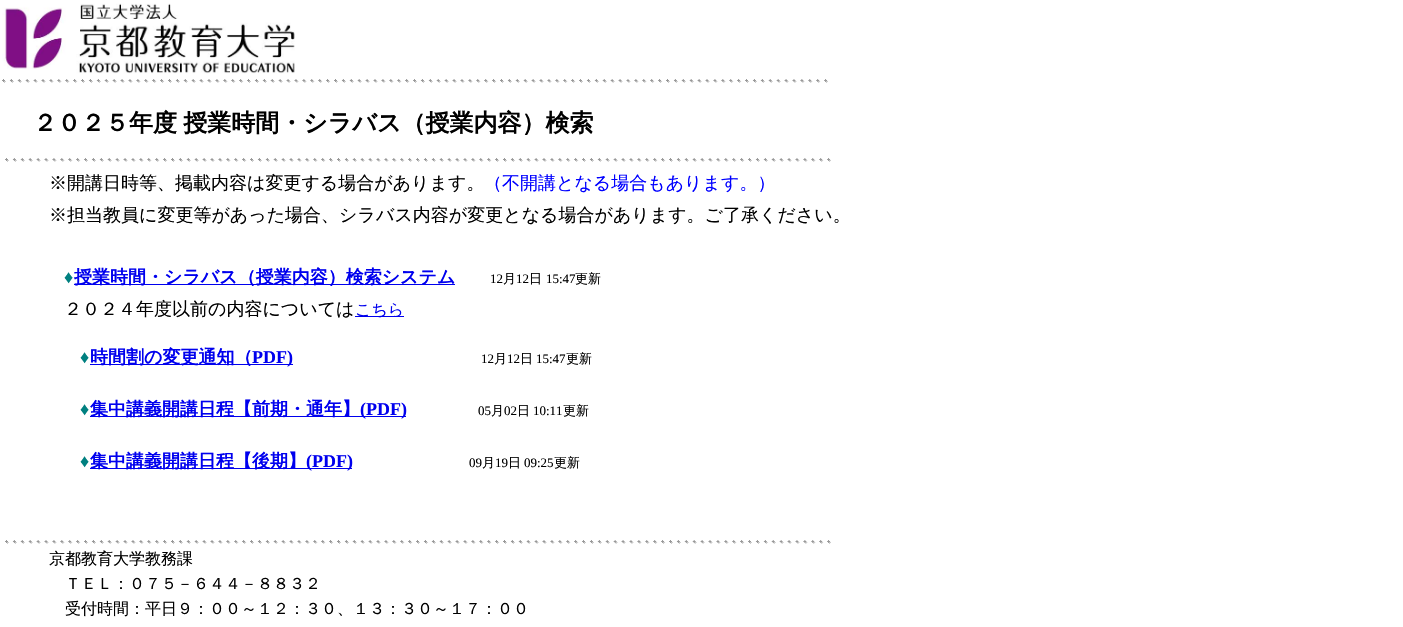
#include "include/core/SkBlurTypes.h"
#include "include/core/SkCanvas.h"
#include "include/core/SkData.h"
#include "include/core/SkFont.h"
#include "include/core/SkFontMgr.h"
#include "include/core/SkImage.h"
#include "include/core/SkMaskFilter.h"
#include "include/core/SkPaint.h"
#include "include/core/SkPathBuilder.h"
#include "include/core/SkTextBlob.h"
#include "include/effects/SkDashPathEffect.h"
#include "include/effects/SkGradientShader.h"
#include "include/utils/SkParsePath.h"

extern sk_sp<SkFontMgr> fontMgr;

void draw(SkCanvas* canvas) {
  SkPaint p;
  p.setAntiAlias(true);
  auto spacedText = [&](const char* s, float x, float y, const SkFont& font, const SkPaint& ink, float letter, float word) {
    std::vector<SkGlyphID> glyphs(font.countText(s, strlen(s), SkTextEncoding::kUTF8));
    std::vector<float> xs(glyphs.size());
    font.textToGlyphs(s, strlen(s), SkTextEncoding::kUTF8, glyphs);
    font.getXPos(glyphs, xs, x);
    float extra = 0;
    for (size_t i = 0; i < glyphs.size(); i++) {
      xs[i] += extra;
      extra += letter + word * (glyphs[i] == font.unicharToGlyph(' '));
    }
    canvas->drawTextBlob(SkTextBlob::MakeFromPosHGlyphs(glyphs, xs, y, font), 0, 0, ink);
  };
  canvas->clear(SK_ColorWHITE);
  canvas->drawImageRect(SkImages::DeferredFromEncodedData(SkData::MakeFromFileName("images/1.png")), SkRect::MakeLTRB(2, 3, 295, 74), SkSamplingOptions());
  canvas->drawImageRect(SkImages::DeferredFromEncodedData(SkData::MakeFromFileName("images/2.png")), SkRect::MakeLTRB(2, 79, 828, 83), SkSamplingOptions());
  canvas->drawImageRect(SkImages::DeferredFromEncodedData(SkData::MakeFromFileName("images/3.png")), SkRect::MakeLTRB(5, 158, 831, 162), SkSamplingOptions());
  p.setColor(SkColorSetRGB(0, 0, 238));
  canvas->drawRect(SkRect::MakeLTRB(74, 284, 455, 285), p);
  canvas->drawRect(SkRect::MakeLTRB(355, 316, 404, 317), p);
  canvas->drawRect(SkRect::MakeLTRB(90, 364, 293, 365), p);
  canvas->drawRect(SkRect::MakeLTRB(90, 416, 406, 417), p);
  canvas->drawRect(SkRect::MakeLTRB(90, 468, 352, 469), p);
  canvas->drawImageRect(SkImages::DeferredFromEncodedData(SkData::MakeFromFileName("images/3.png")), SkRect::MakeLTRB(5, 540, 831, 544), SkSamplingOptions());
  SkFont font1(fontMgr->matchFamilyStyle("WenQuanYi Zen Hei", SkFontStyle::Bold()), 24);
  font1.setSubpixel(true);
  p.setColor(SK_ColorBLACK);
  spacedText("２０２５年度 授業時間・シラバス（授業内容）検索", 33, 131, font1, p, 0, -1);
  SkFont font2(fontMgr->matchFamilyStyle("WenQuanYi Zen Hei", SkFontStyle(500, SkFontStyle::kNormal_Width, SkFontStyle::kUpright_Slant)), 18);
  font2.setSubpixel(true);
  canvas->drawString("※開講日時等、掲載内容は変更する場合があります。", 49, 189, font2, p);
  p.setColor(SkColorSetRGB(0, 0, 255));
  canvas->drawString("（不開講となる場合もあります。）", 484, 189, font2, p);
  p.setColor(SK_ColorBLACK);
  canvas->drawString("※担当教員に変更等があった場合、シラバス内容が変更となる場合があります。ご了承ください。", 49, 221, font2, p);
  SkFont font3(fontMgr->matchFamilyStyle("Liberation Serif", SkFontStyle::Bold()), 18);
  font3.setSubpixel(true);
  p.setColor(SkColorSetRGB(0, 128, 128));
  canvas->drawString("♦", 64, 283, font3, p);
  SkFont font4(fontMgr->matchFamilyStyle("WenQuanYi Zen Hei", SkFontStyle::Bold()), 18);
  font4.setSubpixel(true);
  p.setColor(SkColorSetRGB(0, 0, 238));
  canvas->drawString("授業時間・シラバス（授業内容）検索システム", 74, 283, font4, p);
  SkFont font5(fontMgr->matchFamilyStyle("Liberation Serif", SkFontStyle::Normal()), 13);
  font5.setSubpixel(true);
  p.setColor(SK_ColorBLACK);
  canvas->drawString("12", 490, 283, font5, p);
  SkFont font6(fontMgr->matchFamilyStyle("WenQuanYi Zen Hei", SkFontStyle(500, SkFontStyle::kNormal_Width, SkFontStyle::kUpright_Slant)), 13);
  font6.setSubpixel(true);
  canvas->drawString("月", 503, 283, font6, p);
  canvas->drawString("12", 516, 283, font5, p);
  canvas->drawString("日", 529, 283, font6, p);
  canvas->drawString("15:47", 546, 283, font5, p);
  canvas->drawString("更新", 575, 283, font6, p);
  canvas->drawString("２０２４年度以前の内容については", 64, 315, font2, p);
  SkFont font7(fontMgr->matchFamilyStyle("WenQuanYi Zen Hei", SkFontStyle(500, SkFontStyle::kNormal_Width, SkFontStyle::kUpright_Slant)), 16);
  font7.setSubpixel(true);
  p.setColor(SkColorSetRGB(0, 0, 238));
  canvas->drawString("こちら", 355, 315, font7, p);
  p.setColor(SkColorSetRGB(0, 128, 128));
  canvas->drawString("♦", 80, 363, font3, p);
  p.setColor(SkColorSetRGB(0, 0, 238));
  canvas->drawString("時間割の変更通知（", 90, 363, font4, p);
  canvas->drawString("PDF)", 252, 363, font3, p);
  p.setColor(SK_ColorBLACK);
  canvas->drawString("12", 481, 363, font5, p);
  canvas->drawString("月", 494, 363, font6, p);
  canvas->drawString("12", 507, 363, font5, p);
  canvas->drawString("日", 520, 363, font6, p);
  canvas->drawString("15:47", 536, 363, font5, p);
  canvas->drawString("更新", 566, 363, font6, p);
  p.setColor(SkColorSetRGB(0, 128, 128));
  canvas->drawString("♦", 80, 415, font3, p);
  p.setColor(SkColorSetRGB(0, 0, 238));
  canvas->drawString("集中講義開講日程【前期・通年】", 90, 415, font4, p);
  canvas->drawString("(PDF)", 360, 415, font3, p);
  p.setColor(SK_ColorBLACK);
  canvas->drawString("05", 478, 415, font5, p);
  canvas->drawString("月", 491, 415, font6, p);
  canvas->drawString("02", 504, 415, font5, p);
  canvas->drawString("日", 517, 415, font6, p);
  canvas->drawString("10:11", 533, 415, font5, p);
  canvas->drawString("更新", 563, 415, font6, p);
  p.setColor(SkColorSetRGB(0, 128, 128));
  canvas->drawString("♦", 80, 467, font3, p);
  p.setColor(SkColorSetRGB(0, 0, 238));
  canvas->drawString("集中講義開講日程【後期】", 90, 467, font4, p);
  canvas->drawString("(PDF)", 306, 467, font3, p);
  p.setColor(SK_ColorBLACK);
  canvas->drawString("09", 469, 467, font5, p);
  canvas->drawString("月", 482, 467, font6, p);
  canvas->drawString("19", 495, 467, font5, p);
  canvas->drawString("日", 508, 467, font6, p);
  canvas->drawString("09:25", 524, 467, font5, p);
  canvas->drawString("更新", 554, 467, font6, p);
  canvas->drawString("京都教育大学教務課", 49, 564, font7, p);
  canvas->drawString("ＴＥＬ：０７５－６４４－８８３２", 65, 589, font7, p);
  canvas->drawString("受付時間：平日９：００～１２：３０、１３：３０～１７：００", 65, 614, font7, p);
}
